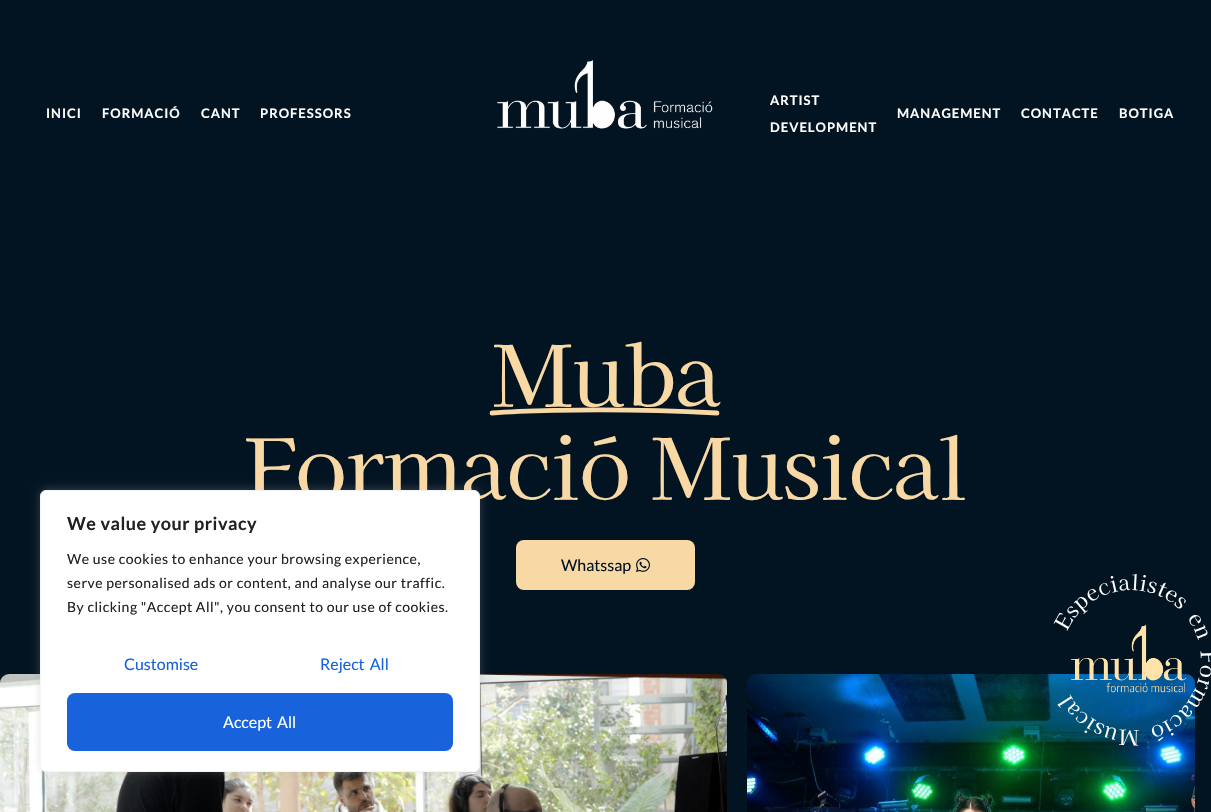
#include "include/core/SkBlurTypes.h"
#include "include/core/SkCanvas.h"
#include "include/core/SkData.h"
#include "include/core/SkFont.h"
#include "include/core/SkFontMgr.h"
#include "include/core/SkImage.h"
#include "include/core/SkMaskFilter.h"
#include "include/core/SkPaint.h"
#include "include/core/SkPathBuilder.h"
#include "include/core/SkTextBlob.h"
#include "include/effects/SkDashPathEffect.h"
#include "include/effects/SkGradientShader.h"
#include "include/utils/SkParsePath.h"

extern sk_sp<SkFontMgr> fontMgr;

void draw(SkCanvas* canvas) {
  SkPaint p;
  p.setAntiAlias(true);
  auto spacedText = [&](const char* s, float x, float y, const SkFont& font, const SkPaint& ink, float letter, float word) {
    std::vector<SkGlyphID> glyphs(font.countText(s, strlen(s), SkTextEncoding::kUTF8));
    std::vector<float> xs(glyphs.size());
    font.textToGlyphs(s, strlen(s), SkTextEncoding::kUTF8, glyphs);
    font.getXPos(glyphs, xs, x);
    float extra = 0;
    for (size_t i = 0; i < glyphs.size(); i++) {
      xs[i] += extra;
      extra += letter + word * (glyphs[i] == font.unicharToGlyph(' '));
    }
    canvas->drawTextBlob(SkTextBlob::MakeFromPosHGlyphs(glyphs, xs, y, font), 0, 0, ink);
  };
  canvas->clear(SkColorSetRGB(2, 19, 33));
  canvas->drawImageRect(SkImages::DeferredFromEncodedData(SkData::MakeFromFileName("images/1.png")), SkRect::MakeLTRB(497, 60, 713, 129), SkSamplingOptions());
  p.setStyle(SkPaint::kStroke_Style);
  p.setStrokeWidth(4.8f);
  p.setStrokeCap(SkPaint::kRound_Cap);
  p.setStrokeJoin(SkPaint::kRound_Join);
  p.setColor(SkColorSetRGB(248, 216, 164));
  canvas->drawPath(SkPathBuilder().moveTo(492, 413).cubicTo(492, 413, 583.5f, 406, 717, 413).detach(), p);
  p.setStyle(SkPaint::kFill_Style);
  canvas->drawRoundRect(SkRect::MakeLTRB(516, 540, 695, 590), 8, 8, p);
  canvas->drawImageRect(SkImages::DeferredFromEncodedData(SkData::MakeFromFileName("images/2.png")), SkRect::MakeLTRB(636, 558, 650, 572), SkSamplingOptions());
  canvas->drawImageRect(SkImages::DeferredFromEncodedData(SkData::MakeFromFileName("images/6.png")), SkRect::MakeLTRB(747, 674, 1195, 812), SkSamplingOptions());
  canvas->drawImageRect(SkImages::DeferredFromEncodedData(SkData::MakeFromFileName("images/3.png")), SkRect::MakeLTRB(1071, 625, 1187, 693), SkSamplingOptions());
  canvas->drawImageRect(SkImages::DeferredFromEncodedData(SkData::MakeFromFileName("images/4.png")), SkRect::MakeLTRB(1053, 574, 1211, 746), SkSamplingOptions());
  canvas->drawImageRect(SkImages::DeferredFromEncodedData(SkData::MakeFromFileName("images/5.png")), SkRect::MakeLTRB(0, 674, 727, 812), SkSamplingOptions());
  p.setColor(SkColorSetARGB(77, 172, 171, 171));
  p.setMaskFilter(SkMaskFilter::MakeBlur(kNormal_SkBlurStyle, 5));
  canvas->drawRoundRect(SkRect::MakeLTRB(40, 489, 480, 771), 6, 6, p);
  p.setMaskFilter(nullptr);
  SkFont font1(fontMgr->matchFamilyStyle("Lato", SkFontStyle::Bold()), 13);
  font1.setSubpixel(true);
  p.setColor(SK_ColorWHITE);
  spacedText("INICI", 46, 118, font1, p, 1, 0);
  spacedText("FORMACIÓ", 102, 118, font1, p, 1, 0);
  spacedText("CANT", 201, 118, font1, p, 1, 0);
  spacedText("PROFESSORS", 260, 118, font1, p, 1, 0);
  spacedText("ARTIST", 770, 105, font1, p, 1, 0);
  spacedText("DEVELOPMENT", 770, 132, font1, p, 1, 0);
  spacedText("MANAGEMENT", 897, 118, font1, p, 1, 0);
  spacedText("CONTACTE", 1021, 118, font1, p, 1, 0);
  spacedText("BOTIGA", 1119, 118, font1, p, 1, 0);
  SkFont font2(fontMgr->matchFamilyStyle("Kaisei Decol", SkFontStyle::Normal()), 85);
  font2.setSubpixel(true);
  p.setColor(SkColorSetRGB(248, 216, 164));
  spacedText("Muba", 492, 407, font2, p, -1, 0);
  spacedText("Formació Musical", 244, 500, font2, p, -1, 0);
  SkFont font3(fontMgr->matchFamilyStyle("Lato", SkFontStyle::Normal()), 16);
  font3.setSubpixel(true);
  p.setColor(SkColorSetRGB(2, 19, 33));
  canvas->drawString("Whatssap", 561, 571, font3, p);
  p.setColor(SK_ColorWHITE);
  canvas->drawRoundRect(SkRect::MakeLTRB(40.5f, 490.5f, 479.5f, 771.5f), 5.5f, 5.5f, p);
  p.setStyle(SkPaint::kStroke_Style);
  p.setStrokeWidth(1);
  p.setStrokeCap(SkPaint::kButt_Cap);
  p.setStrokeJoin(SkPaint::kMiter_Join);
  p.setColor(SkColorSetRGB(244, 244, 244));
  canvas->drawRoundRect(SkRect::MakeLTRB(40.5f, 490.5f, 479.5f, 771.5f), 5.5f, 5.5f, p);
  SkFont font4(fontMgr->matchFamilyStyle("Lato", SkFontStyle::Bold()), 18);
  font4.setSubpixel(true);
  p.setStyle(SkPaint::kFill_Style);
  p.setColor(SkColorSetRGB(33, 33, 33));
  spacedText("We value your privacy", 67, 530, font4, p, 0.5f, 0);
  SkFont font5(fontMgr->matchFamilyStyle("Lato", SkFontStyle::Normal()), 14);
  font5.setSubpixel(true);
  spacedText("We use cookies to enhance your browsing experience,", 67, 564, font5, p, 0.5f, 0);
  spacedText("serve personalised ads or content, and analyse our traffic.", 67, 588, font5, p, 0.5f, 0);
  spacedText("By clicking \"Accept All\", you consent to our use of cookies.", 67, 612, font5, p, 0.5f, 0);
  p.setColor(SkColorSetRGB(24, 99, 220));
  canvas->drawString("Customise", 124, 670, font3, p);
  spacedText("Reject All", 320, 670, font3, p, 0, 2);
  canvas->drawRoundRect(SkRect::MakeLTRB(67, 693, 453, 751), 8, 8, p);
  p.setColor(SK_ColorWHITE);
  spacedText("Accept All", 223, 728, font3, p, 0, 2);
}
